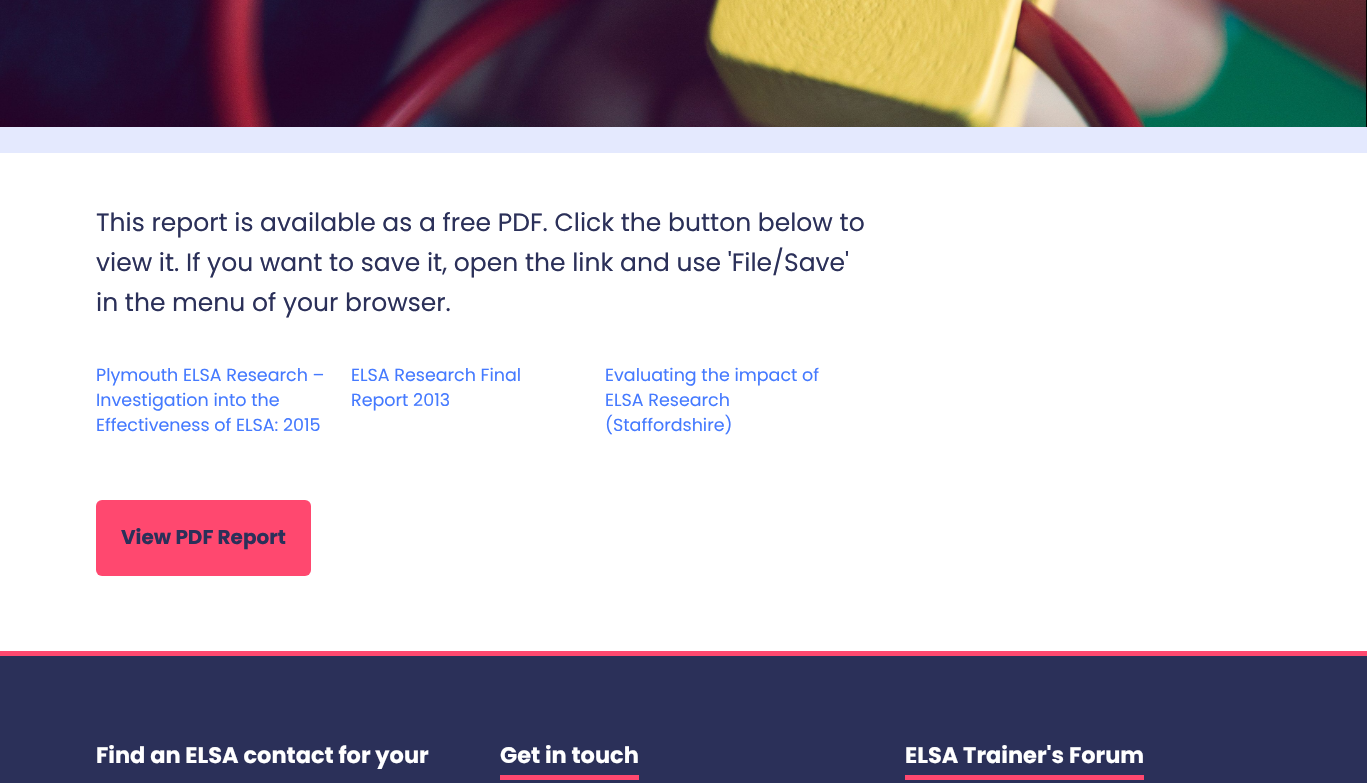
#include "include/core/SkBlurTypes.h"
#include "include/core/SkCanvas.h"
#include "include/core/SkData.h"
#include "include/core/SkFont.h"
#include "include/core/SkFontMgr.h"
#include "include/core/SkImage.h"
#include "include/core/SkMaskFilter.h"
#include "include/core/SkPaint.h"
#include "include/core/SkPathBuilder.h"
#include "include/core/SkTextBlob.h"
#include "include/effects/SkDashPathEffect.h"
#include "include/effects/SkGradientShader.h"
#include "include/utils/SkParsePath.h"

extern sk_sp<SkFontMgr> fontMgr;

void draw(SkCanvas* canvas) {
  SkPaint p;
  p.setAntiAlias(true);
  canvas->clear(SK_ColorWHITE);
  p.setColor(SkColorSetRGB(228, 233, 254));
  canvas->drawRect(SkRect::MakeLTRB(0, 127, 1367, 153), p);
  canvas->drawImageRect(SkImages::DeferredFromEncodedData(SkData::MakeFromFileName("images/1.png")), SkRect::MakeLTRB(0, 0, 1367, 127), SkSamplingOptions());
  p.setColor(SkColorSetRGB(255, 72, 111));
  canvas->drawRoundRect(SkRect::MakeLTRB(96, 500, 311, 576), 6, 6, p);
  p.setColor(SkColorSetRGB(43, 48, 89));
  canvas->drawRect(SkRect::MakeLTRB(0, 656, 1367, 783), p);
  p.setColor(SkColorSetRGB(255, 72, 111));
  canvas->drawRect(SkRect::MakeLTRB(0, 651, 1367, 656), p);
  canvas->drawRect(SkRect::MakeLTRB(500, 775, 639, 780), p);
  canvas->drawRect(SkRect::MakeLTRB(905, 775, 1144, 780), p);
  SkFont font1(fontMgr->matchFamilyStyle("Poppins", SkFontStyle::Normal()), 25);
  font1.setSubpixel(true);
  p.setColor(SkColorSetRGB(43, 48, 89));
  canvas->drawString("This report is available as a free PDF. Click the button below to", 96, 231, font1, p);
  canvas->drawString("view it. If you want to save it, open the link and use 'File/Save'", 96, 271, font1, p);
  canvas->drawString("in the menu of your browser.", 96, 311, font1, p);
  SkFont font2(fontMgr->matchFamilyStyle("Poppins", SkFontStyle::Normal()), 17.5f);
  font2.setSubpixel(true);
  p.setColor(SkColorSetRGB(69, 122, 255));
  canvas->drawString("Plymouth ELSA Research –", 96, 381, font2, p);
  canvas->drawString("Investigation into the", 96, 406, font2, p);
  canvas->drawString("Effectiveness of ELSA: 2015", 96, 431, font2, p);
  canvas->drawString("ELSA Research Final", 351, 381, font2, p);
  canvas->drawString("Report 2013", 351, 406, font2, p);
  canvas->drawString("Evaluating the impact of", 605, 381, font2, p);
  canvas->drawString("ELSA Research", 605, 406, font2, p);
  canvas->drawString("(Staffordshire)", 605, 431, font2, p);
  SkFont font3(fontMgr->matchFamilyStyle("Poppins", SkFontStyle::Bold()), 20);
  font3.setSubpixel(true);
  p.setColor(SkColorSetRGB(43, 48, 89));
  canvas->drawString("View PDF Report", 121, 544, font3, p);
  SkFont font4(fontMgr->matchFamilyStyle("Poppins", SkFontStyle::Bold()), 22.5f);
  font4.setSubpixel(true);
  p.setColor(SK_ColorWHITE);
  canvas->drawString("Find an ELSA contact for your", 96, 763, font4, p);
  canvas->drawString("Get in touch", 500, 763, font4, p);
  canvas->drawString("ELSA Trainer's Forum", 905, 763, font4, p);
}
